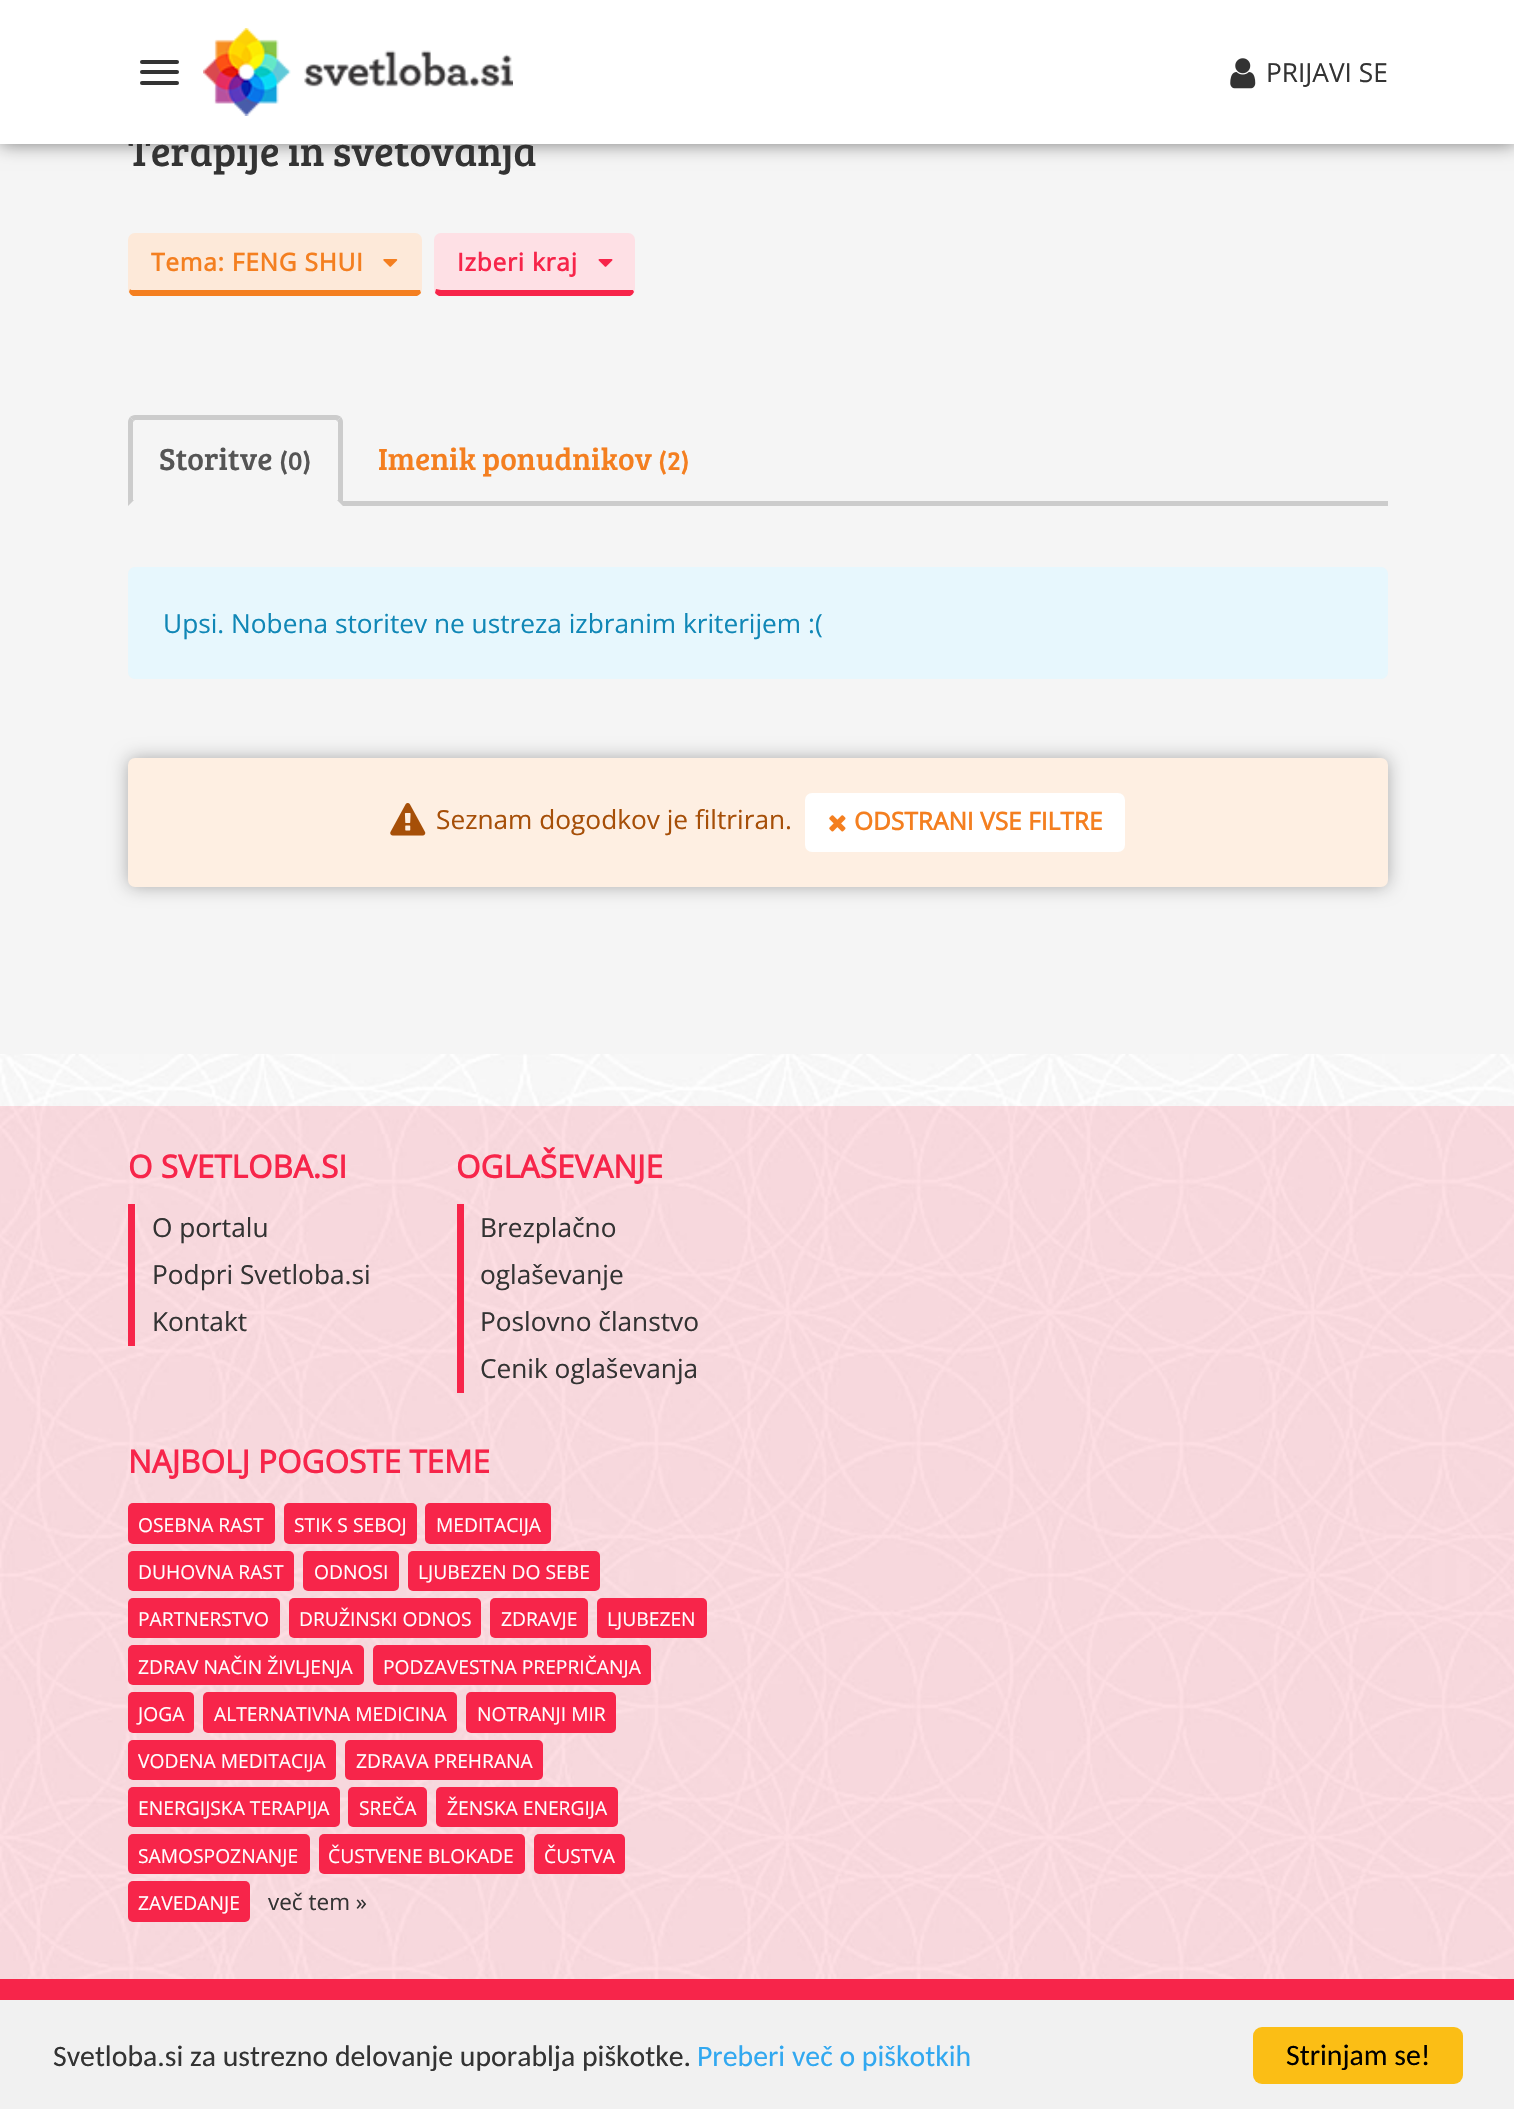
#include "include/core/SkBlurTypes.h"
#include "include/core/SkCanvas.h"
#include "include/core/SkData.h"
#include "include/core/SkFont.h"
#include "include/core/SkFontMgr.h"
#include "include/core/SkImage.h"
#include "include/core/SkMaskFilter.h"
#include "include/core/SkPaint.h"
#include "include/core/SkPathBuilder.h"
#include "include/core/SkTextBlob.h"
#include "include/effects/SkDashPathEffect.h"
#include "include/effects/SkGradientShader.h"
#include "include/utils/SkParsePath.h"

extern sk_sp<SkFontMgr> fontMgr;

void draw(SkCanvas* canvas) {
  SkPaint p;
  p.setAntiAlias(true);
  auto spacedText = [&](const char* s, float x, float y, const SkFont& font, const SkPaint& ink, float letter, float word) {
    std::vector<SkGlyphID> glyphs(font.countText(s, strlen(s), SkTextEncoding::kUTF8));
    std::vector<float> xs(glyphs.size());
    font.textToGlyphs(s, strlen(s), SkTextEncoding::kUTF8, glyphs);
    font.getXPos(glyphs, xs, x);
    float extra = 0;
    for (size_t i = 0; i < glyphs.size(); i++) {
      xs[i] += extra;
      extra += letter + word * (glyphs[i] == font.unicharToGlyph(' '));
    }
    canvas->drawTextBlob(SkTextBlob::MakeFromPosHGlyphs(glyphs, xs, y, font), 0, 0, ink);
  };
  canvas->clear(SK_ColorWHITE);
  canvas->drawImageRect(SkImages::DeferredFromEncodedData(SkData::MakeFromFileName("images/1.png")), SkRect::MakeLTRB(0, 1054, 1514, 1979), SkSamplingOptions());
  p.setColor(SkColorSetRGB(245, 245, 245));
  canvas->drawRect(SkRect::MakeLTRB(0, 144, 1514, 1054), p);
  p.setColor(SkColorSetARGB(128, 0, 0, 0));
  p.setMaskFilter(SkMaskFilter::MakeBlur(kNormal_SkBlurStyle, 9));
  canvas->drawRect(SkRect::MakeLTRB(0, 0, 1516, 144), p);
  p.setMaskFilter(nullptr);
  p.setColor(SkColorSetRGB(253, 233, 217));
  canvas->drawRoundRect(SkRect::MakeLTRB(128, 233, 422, 296), 7, 7, p);
  p.setColor(SkColorSetRGB(244, 127, 32));
  canvas->drawPath(SkPathBuilder().moveTo(133, 296).cubicTo(131, 295, 130, 294, 129, 292).lineTo(130, 289).cubicTo(130, 290, 132, 290, 135, 290).lineTo(415, 290).cubicTo(417, 290, 419, 290, 420, 290).lineTo(421, 293).cubicTo(420, 294, 419, 295, 417, 296).close().detach(), p);
  canvas->drawImageRect(SkImages::DeferredFromEncodedData(SkData::MakeFromFileName("images/4.png")), SkRect::MakeLTRB(383, 259, 398, 267), SkSamplingOptions());
  p.setColor(SkColorSetRGB(254, 224, 229));
  canvas->drawRoundRect(SkRect::MakeLTRB(434, 233, 635, 296), 7, 7, p);
  p.setColor(SkColorSetRGB(247, 37, 74));
  canvas->drawPath(SkPathBuilder().moveTo(439, 296).cubicTo(437, 295, 436, 294, 435, 293).lineTo(436, 289).lineTo(441, 290).lineTo(633, 290).lineTo(634, 292).cubicTo(633, 294, 632, 295, 630, 296).close().detach(), p);
  canvas->drawImageRect(SkImages::DeferredFromEncodedData(SkData::MakeFromFileName("images/5.png")), SkRect::MakeLTRB(598, 259, 613, 267), SkSamplingOptions());
  p.setColor(SkColorSetRGB(204, 204, 204));
  canvas->drawRect(SkRect::MakeLTRB(343, 501, 1388, 506), p);
  canvas->drawPath(SkPathBuilder().moveTo(135, 415).cubicTo(133, 415, 131, 416, 130, 417).lineTo(134, 421).lineTo(135, 420).lineTo(336, 420).lineTo(337, 421).lineTo(341, 417).cubicTo(340, 416, 338, 415, 336, 415).close().detach(), p);
  canvas->drawPath(SkPathBuilder().moveTo(341, 417).cubicTo(342, 418, 343, 420, 343, 422).lineTo(343, 506).lineTo(337, 500).lineTo(338, 500).lineTo(338, 422).lineTo(337, 421).close().detach(), p);
  canvas->drawPath(SkPathBuilder().moveTo(130, 417).cubicTo(129, 418, 128, 420, 128, 422).lineTo(128, 506).lineTo(134, 500).lineTo(133, 500).lineTo(133, 422).lineTo(134, 421).close().detach(), p);
  p.setColor(SkColorSetRGB(231, 247, 253));
  canvas->drawRoundRect(SkRect::MakeLTRB(128, 567, 1388, 679), 7, 7, p);
  p.setColor(SkColorSetARGB(77, 0, 0, 0));
  p.setMaskFilter(SkMaskFilter::MakeBlur(kNormal_SkBlurStyle, 9));
  canvas->drawRoundRect(SkRect::MakeLTRB(128, 758, 1388, 887), 7, 7, p);
  p.setMaskFilter(nullptr);
  p.setColor(SkColorSetRGB(254, 239, 226));
  canvas->drawRoundRect(SkRect::MakeLTRB(128, 758, 1388, 887), 7, 7, p);
  canvas->drawImageRect(SkImages::DeferredFromEncodedData(SkData::MakeFromFileName("images/6.png")), SkRect::MakeLTRB(390, 803, 426, 836), SkSamplingOptions());
  p.setColor(SK_ColorWHITE);
  canvas->drawRoundRect(SkRect::MakeLTRB(805, 793, 1125, 852), 7, 7, p);
  canvas->drawImageRect(SkImages::DeferredFromEncodedData(SkData::MakeFromFileName("images/7.png")), SkRect::MakeLTRB(829, 815, 846, 832), SkSamplingOptions());
  p.setColor(SkColorSetARGB(38, 247, 37, 74));
  canvas->drawRect(SkRect::MakeLTRB(0, 1106, 1514, 1979), p);
  p.setColor(SkColorSetRGB(247, 37, 74));
  canvas->drawRect(SkRect::MakeLTRB(128, 1204, 135, 1346), p);
  canvas->drawRect(SkRect::MakeLTRB(457, 1204, 464, 1393), p);
  canvas->drawRoundRect(SkRect::MakeLTRB(128, 1503, 275, 1544), 5, 5, p);
  canvas->drawRoundRect(SkRect::MakeLTRB(284, 1503, 417, 1544), 5, 5, p);
  canvas->drawRoundRect(SkRect::MakeLTRB(425, 1503, 551, 1544), 5, 5, p);
  canvas->drawRoundRect(SkRect::MakeLTRB(128, 1551, 294, 1591), 5, 5, p);
  canvas->drawRoundRect(SkRect::MakeLTRB(303, 1551, 399, 1591), 5, 5, p);
  canvas->drawRoundRect(SkRect::MakeLTRB(408, 1551, 600, 1591), 5, 5, p);
  canvas->drawRoundRect(SkRect::MakeLTRB(128, 1598, 280, 1638), 5, 5, p);
  canvas->drawRoundRect(SkRect::MakeLTRB(289, 1598, 481, 1638), 5, 5, p);
  canvas->drawRoundRect(SkRect::MakeLTRB(490, 1598, 588, 1638), 5, 5, p);
  canvas->drawRoundRect(SkRect::MakeLTRB(597, 1598, 707, 1638), 5, 5, p);
  canvas->drawRoundRect(SkRect::MakeLTRB(128, 1645, 364, 1685), 5, 5, p);
  canvas->drawRoundRect(SkRect::MakeLTRB(373, 1645, 651, 1685), 5, 5, p);
  canvas->drawRoundRect(SkRect::MakeLTRB(128, 1692, 194, 1733), 5, 5, p);
  canvas->drawRoundRect(SkRect::MakeLTRB(203, 1692, 457, 1733), 5, 5, p);
  canvas->drawRoundRect(SkRect::MakeLTRB(466, 1692, 616, 1733), 5, 5, p);
  canvas->drawRoundRect(SkRect::MakeLTRB(128, 1740, 336, 1780), 5, 5, p);
  canvas->drawRoundRect(SkRect::MakeLTRB(345, 1740, 543, 1780), 5, 5, p);
  canvas->drawRoundRect(SkRect::MakeLTRB(128, 1787, 340, 1827), 5, 5, p);
  canvas->drawRoundRect(SkRect::MakeLTRB(348, 1787, 427, 1827), 5, 5, p);
  canvas->drawRoundRect(SkRect::MakeLTRB(436, 1787, 618, 1827), 5, 5, p);
  canvas->drawRoundRect(SkRect::MakeLTRB(128, 1834, 310, 1874), 5, 5, p);
  canvas->drawRoundRect(SkRect::MakeLTRB(319, 1834, 525, 1874), 5, 5, p);
  canvas->drawRoundRect(SkRect::MakeLTRB(534, 1834, 625, 1874), 5, 5, p);
  canvas->drawRoundRect(SkRect::MakeLTRB(128, 1881, 250, 1922), 5, 5, p);
  canvas->drawRect(SkRect::MakeLTRB(0, 1979, 1514, 2000), p);
  p.setColor(SkColorSetRGB(241, 241, 241));
  canvas->drawRect(SkRect::MakeLTRB(0, 2000, 1514, 2109), p);
  p.setColor(SkColorSetRGB(251, 190, 21));
  canvas->drawRoundRect(SkRect::MakeLTRB(1253, 2027, 1463, 2084), 9, 9, p);
  SkFont font1(fontMgr->matchFamilyStyle("Bree Serif", SkFontStyle::Normal()), 41);
  font1.setSubpixel(true);
  p.setColor(SkColorSetRGB(51, 51, 51));
  canvas->drawString("Terapije in svetovanja", 128, 166, font1, p);
  p.setColor(SK_ColorWHITE);
  canvas->drawRect(SkRect::MakeLTRB(0, 0, 1514, 144), p);
  SkFont font2(fontMgr->matchFamilyStyle("Open Sans", SkFontStyle::Normal()), 26.25f);
  font2.setSubpixel(true);
  p.setColor(SkColorSetRGB(51, 51, 51));
  canvas->drawString("PRIJAVI SE", 1266, 82, font2, p);
  canvas->drawImageRect(SkImages::DeferredFromEncodedData(SkData::MakeFromFileName("images/3.png")), SkRect::MakeLTRB(1230, 58, 1256, 89), SkSamplingOptions());
  canvas->drawRoundRect(SkRect::MakeLTRB(140, 81, 179, 85), 2, 2, p);
  canvas->drawRoundRect(SkRect::MakeLTRB(140, 70, 179, 74), 2, 2, p);
  canvas->drawRoundRect(SkRect::MakeLTRB(140, 60, 179, 64), 2, 2, p);
  canvas->drawImageRect(SkImages::DeferredFromEncodedData(SkData::MakeFromFileName("images/2.png")), SkRect::MakeLTRB(203, 28, 513, 116), SkSamplingOptions());
  SkFont font3(fontMgr->matchFamilyStyle("Open Sans", SkFontStyle::Bold()), 24.5f);
  font3.setSubpixel(true);
  p.setColor(SkColorSetRGB(244, 127, 32));
  spacedText("Tema: FENG SHUI", 151, 271, font3, p, 0.75f, 0);
  p.setColor(SkColorSetRGB(247, 37, 74));
  spacedText("Izberi kraj", 457, 271, font3, p, 0.75f, 0);
  SkFont font4(fontMgr->matchFamilyStyle("Bree Serif", SkFontStyle::Normal()), 31.5f);
  font4.setSubpixel(true);
  p.setColor(SkColorSetRGB(85, 85, 85));
  canvas->drawString("Storitve", 159, 470, font4, p);
  SkFont font5(fontMgr->matchFamilyStyle("Bree Serif", SkFontStyle::Normal()), 27);
  font5.setSubpixel(true);
  canvas->drawString("(0)", 279, 470, font5, p);
  p.setColor(SkColorSetRGB(244, 127, 32));
  canvas->drawString("Imenik ponudnikov", 378, 470, font4, p);
  canvas->drawString("(2)", 658, 470, font5, p);
  p.setColor(SkColorSetRGB(16, 135, 182));
  canvas->drawString("Upsi. Nobena storitev ne ustreza izbranim kriterijem :(", 163, 633, font2, p);
  p.setColor(SkColorSetRGB(166, 79, 8));
  canvas->drawString("Seznam dogodkov je filtriran.", 436, 829, font2, p);
  p.setColor(SkColorSetRGB(244, 127, 32));
  canvas->drawString("ODSTRANI VSE FILTRE", 854, 830, font3, p);
  SkFont font6(fontMgr->matchFamilyStyle("Open Sans", SkFontStyle::Bold()), 31.5f);
  font6.setSubpixel(true);
  p.setColor(SkColorSetRGB(247, 37, 74));
  canvas->drawString("O SVETLOBA.SI", 128, 1178, font6, p);
  p.setColor(SkColorSetRGB(51, 51, 51));
  canvas->drawString("O portalu", 152, 1237, font2, p);
  canvas->drawString("Podpri Svetloba.si", 152, 1284, font2, p);
  canvas->drawString("Kontakt", 152, 1331, font2, p);
  p.setColor(SkColorSetRGB(247, 37, 74));
  canvas->drawString("OGLAŠEVANJE", 456, 1178, font6, p);
  p.setColor(SkColorSetRGB(51, 51, 51));
  canvas->drawString("Brezplačno", 480, 1237, font2, p);
  canvas->drawString("oglaševanje", 480, 1284, font2, p);
  canvas->drawString("Poslovno članstvo", 480, 1331, font2, p);
  canvas->drawString("Cenik oglaševanja", 480, 1378, font2, p);
  p.setColor(SkColorSetRGB(247, 37, 74));
  canvas->drawString("NAJBOLJ POGOSTE TEME", 128, 1473, font6, p);
  SkFont font7(fontMgr->matchFamilyStyle("Open Sans", SkFontStyle::Normal()), 19.25f);
  font7.setSubpixel(true);
  p.setColor(SK_ColorWHITE);
  canvas->drawString("OSEBNA RAST", 138, 1532, font7, p);
  canvas->drawString("STIK S SEBOJ", 294, 1532, font7, p);
  canvas->drawString("MEDITACIJA", 436, 1532, font7, p);
  canvas->drawString("DUHOVNA RAST", 138, 1579, font7, p);
  canvas->drawString("ODNOSI", 314, 1579, font7, p);
  canvas->drawString("LJUBEZEN DO SEBE", 418, 1579, font7, p);
  canvas->drawString("PARTNERSTVO", 138, 1626, font7, p);
  canvas->drawString("DRUŽINSKI ODNOS", 299, 1626, font7, p);
  canvas->drawString("ZDRAVJE", 501, 1626, font7, p);
  canvas->drawString("LJUBEZEN", 607, 1626, font7, p);
  canvas->drawString("ZDRAV NAČIN ŽIVLJENJA", 138, 1674, font7, p);
  canvas->drawString("PODZAVESTNA PREPRIČANJA", 383, 1674, font7, p);
  canvas->drawString("JOGA", 138, 1721, font7, p);
  canvas->drawString("ALTERNATIVNA MEDICINA", 214, 1721, font7, p);
  canvas->drawString("NOTRANJI MIR", 477, 1721, font7, p);
  canvas->drawString("VODENA MEDITACIJA", 138, 1768, font7, p);
  canvas->drawString("ZDRAVA PREHRANA", 356, 1768, font7, p);
  canvas->drawString("ENERGIJSKA TERAPIJA", 138, 1815, font7, p);
  canvas->drawString("SREČA", 359, 1815, font7, p);
  canvas->drawString("ŽENSKA ENERGIJA", 447, 1815, font7, p);
  canvas->drawString("SAMOSPOZNANJE", 138, 1863, font7, p);
  canvas->drawString("ČUSTVENE BLOKADE", 328, 1863, font7, p);
  canvas->drawString("ČUSTVA", 544, 1863, font7, p);
  canvas->drawString("ZAVEDANJE", 138, 1910, font7, p);
  SkFont font8(fontMgr->matchFamilyStyle("Open Sans", SkFontStyle::Normal()), 22.5f);
  font8.setSubpixel(true);
  p.setColor(SkColorSetRGB(51, 51, 51));
  canvas->drawString("več tem »", 268, 1910, font8, p);
  SkFont font9(fontMgr->matchFamilyStyle("Carlito", SkFontStyle::Normal()), 29.75f);
  font9.setSubpixel(true);
  canvas->drawString("Svetloba.si za ustrezno delovanje uporablja piškotke.", 53, 2066, font9, p);
  p.setColor(SkColorSetRGB(49, 168, 240));
  canvas->drawString("Preberi več o piškotkih", 697, 2066, font9, p);
  p.setColor(SK_ColorBLACK);
  canvas->drawString("Strinjam se!", 1286, 2065, font9, p);
}
